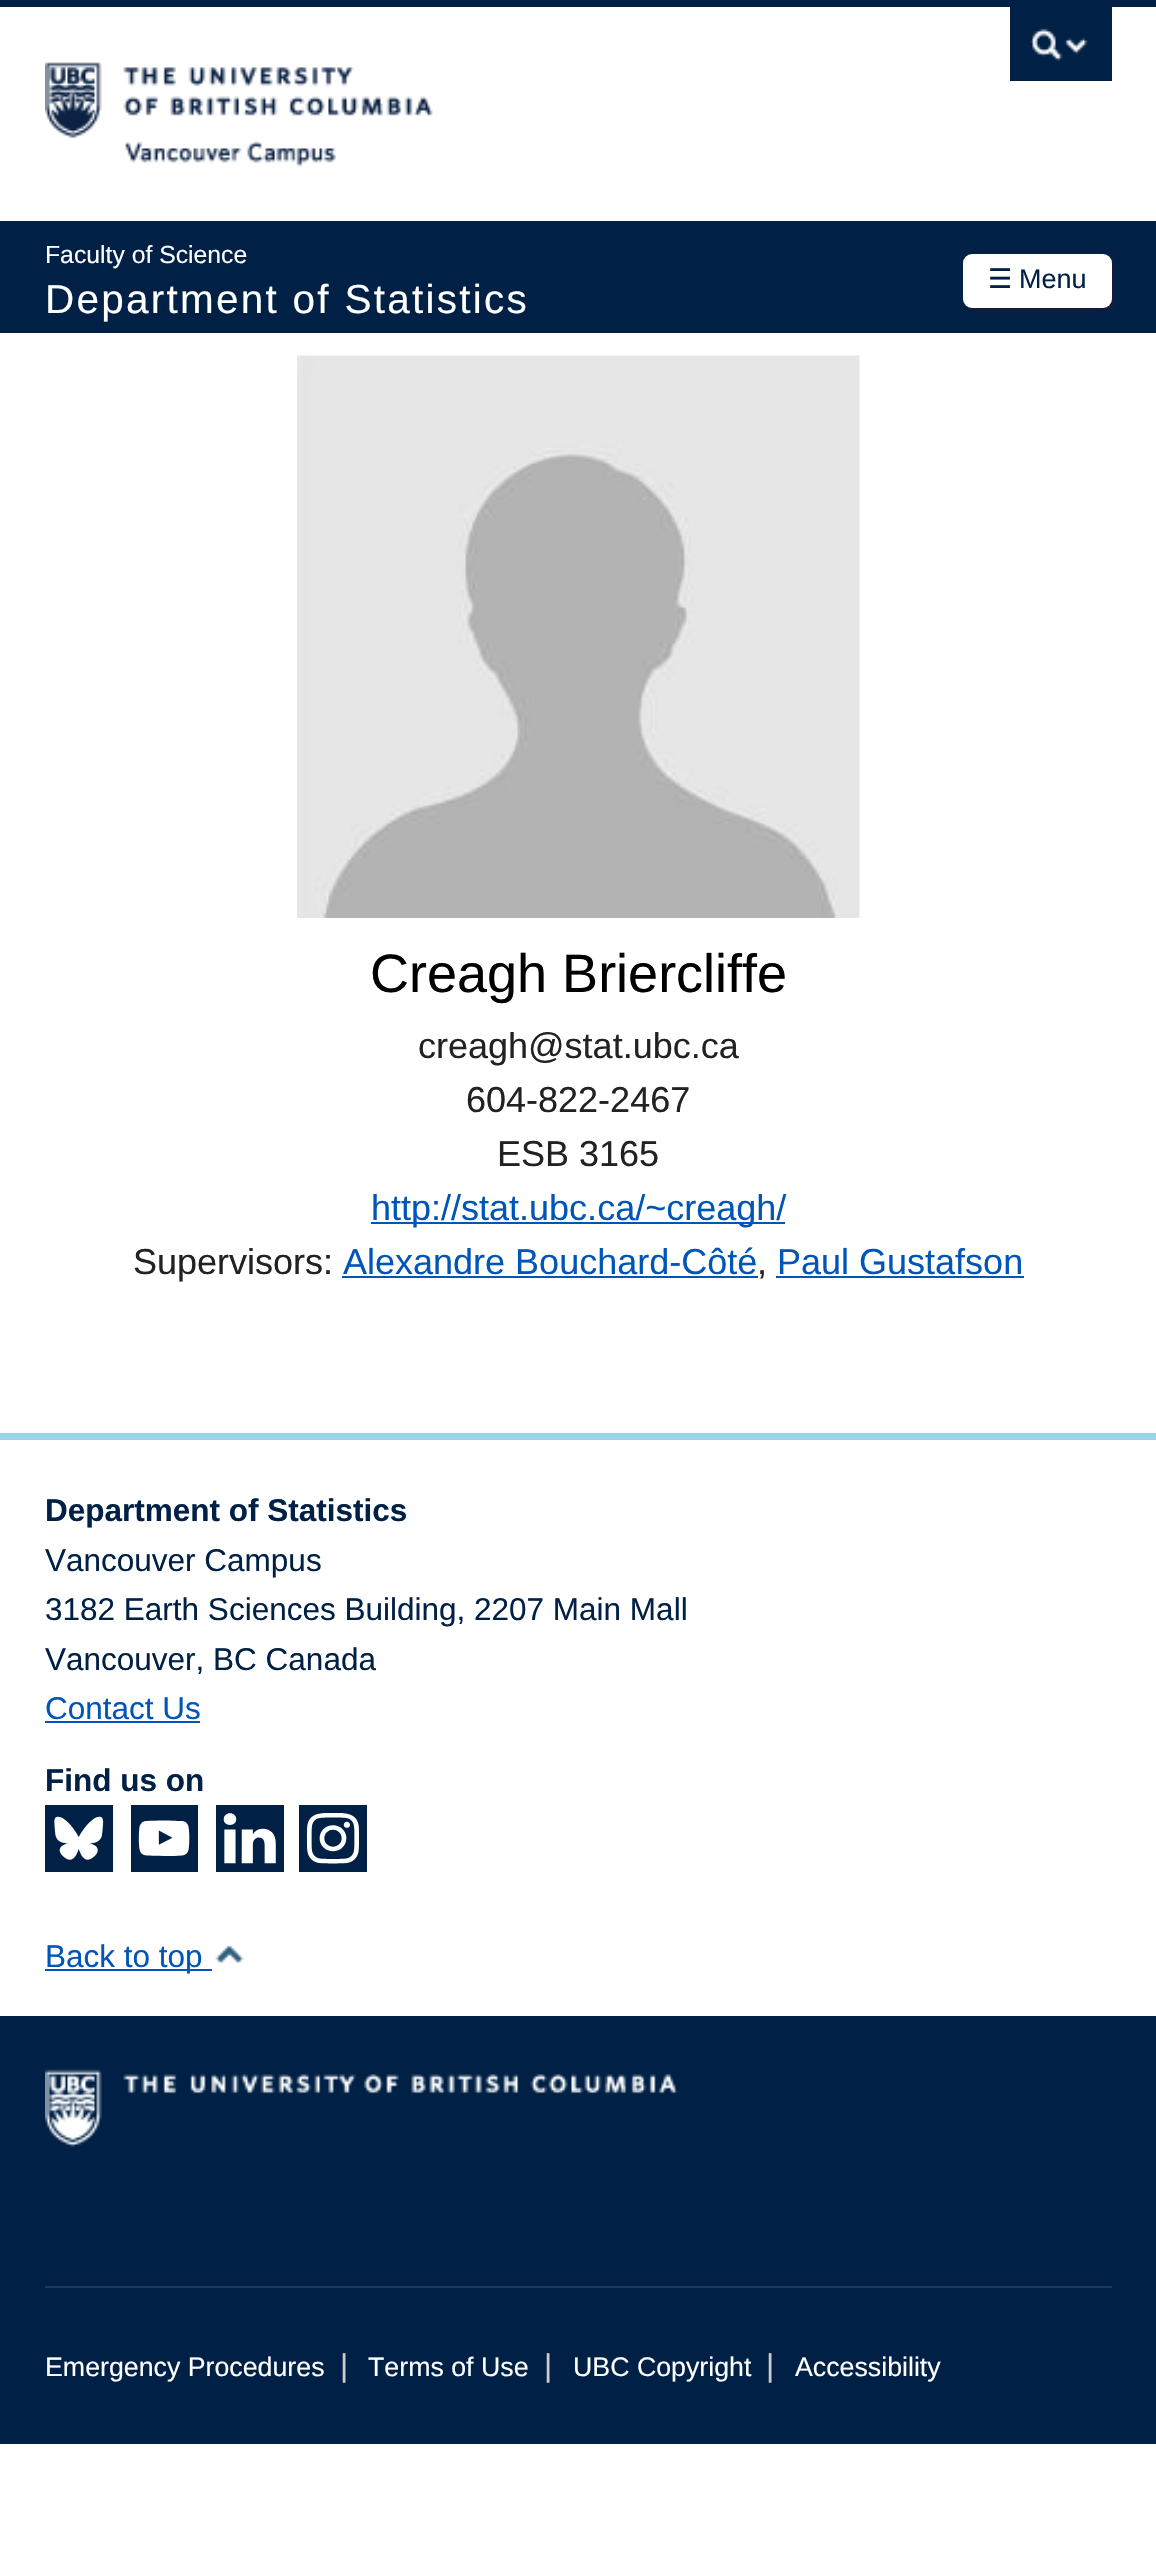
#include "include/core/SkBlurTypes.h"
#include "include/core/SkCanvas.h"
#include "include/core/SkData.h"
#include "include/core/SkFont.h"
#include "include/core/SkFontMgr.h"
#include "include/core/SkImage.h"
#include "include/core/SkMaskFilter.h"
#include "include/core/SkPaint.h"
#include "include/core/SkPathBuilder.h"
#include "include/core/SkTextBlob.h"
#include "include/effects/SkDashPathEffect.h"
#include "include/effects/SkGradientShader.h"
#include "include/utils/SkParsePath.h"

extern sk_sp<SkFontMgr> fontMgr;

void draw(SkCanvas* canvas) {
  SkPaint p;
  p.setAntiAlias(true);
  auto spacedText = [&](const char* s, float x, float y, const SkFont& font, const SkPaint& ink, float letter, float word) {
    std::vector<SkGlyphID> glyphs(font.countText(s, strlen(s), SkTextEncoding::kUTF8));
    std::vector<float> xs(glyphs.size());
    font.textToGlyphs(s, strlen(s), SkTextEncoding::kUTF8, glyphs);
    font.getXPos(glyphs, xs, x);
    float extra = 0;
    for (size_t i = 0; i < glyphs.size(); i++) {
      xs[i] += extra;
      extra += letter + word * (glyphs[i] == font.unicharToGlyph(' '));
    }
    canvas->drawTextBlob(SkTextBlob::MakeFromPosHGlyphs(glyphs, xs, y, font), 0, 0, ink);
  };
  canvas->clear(SK_ColorWHITE);
  p.setColor(SkColorSetRGB(0, 33, 69));
  canvas->drawRect(SkRect::MakeLTRB(0, 0, 1156, 7), p);
  canvas->drawImageRect(SkImages::DeferredFromEncodedData(SkData::MakeFromFileName("images/1.png")), SkRect::MakeLTRB(45, 62, 433, 138), SkSamplingOptions());
  canvas->drawRect(SkRect::MakeLTRB(1010, 7, 1112, 81), p);
  canvas->drawImageRect(SkImages::DeferredFromEncodedData(SkData::MakeFromFileName("images/2.png")), SkRect::MakeLTRB(1030, 28, 1088, 62), SkSamplingOptions());
  canvas->drawImageRect(SkImages::DeferredFromEncodedData(SkData::MakeFromFileName("images/3.png")), SkRect::MakeLTRB(125, 141, 336, 167), SkSamplingOptions());
  canvas->drawRect(SkRect::MakeLTRB(0, 221, 1156, 333), p);
  p.setColor(SkColorSetRGB(25, 25, 56));
  p.setMaskFilter(SkMaskFilter::MakeBlur(kNormal_SkBlurStyle, 1));
  canvas->drawRoundRect(SkRect::MakeLTRB(965, 257, 1114, 311), 9, 9, p);
  p.setMaskFilter(nullptr);
  p.setColor(SK_ColorWHITE);
  canvas->drawRoundRect(SkRect::MakeLTRB(963, 254, 1112, 308), 9, 9, p);
  canvas->drawImageRect(SkImages::DeferredFromEncodedData(SkData::MakeFromFileName("images/4.png")), SkRect::MakeLTRB(297, 355, 860, 918), SkSamplingOptions());
  p.setColor(SkColorSetRGB(0, 85, 184));
  canvas->drawRect(SkRect::MakeLTRB(371, 1222, 785, 1224), p);
  canvas->drawRect(SkRect::MakeLTRB(342, 1276, 758, 1278), p);
  canvas->drawRect(SkRect::MakeLTRB(776, 1276, 1024, 1278), p);
  p.setColor(SkColorSetRGB(152, 213, 233));
  canvas->drawRect(SkRect::MakeLTRB(0, 1433, 1156, 1440), p);
  p.setColor(SkColorSetRGB(0, 85, 184));
  canvas->drawRect(SkRect::MakeLTRB(45, 1721, 200, 1723), p);
  p.setColor(SkColorSetRGB(0, 33, 69));
  canvas->drawRect(SkRect::MakeLTRB(45, 1805, 113, 1872), p);
  canvas->drawImageRect(SkImages::DeferredFromEncodedData(SkData::MakeFromFileName("images/5.png")), SkRect::MakeLTRB(54, 1816, 104, 1860), SkSamplingOptions());
  canvas->drawRect(SkRect::MakeLTRB(131, 1805, 198, 1872), p);
  canvas->drawImageRect(SkImages::DeferredFromEncodedData(SkData::MakeFromFileName("images/6.png")), SkRect::MakeLTRB(138, 1820, 190, 1856), SkSamplingOptions());
  canvas->drawRect(SkRect::MakeLTRB(216, 1805, 284, 1872), p);
  canvas->drawImageRect(SkImages::DeferredFromEncodedData(SkData::MakeFromFileName("images/7.png")), SkRect::MakeLTRB(223, 1813, 276, 1864), SkSamplingOptions());
  canvas->drawRect(SkRect::MakeLTRB(299, 1805, 367, 1872), p);
  canvas->drawImageRect(SkImages::DeferredFromEncodedData(SkData::MakeFromFileName("images/8.png")), SkRect::MakeLTRB(306, 1813, 360, 1864), SkSamplingOptions());
  p.setColor(SkColorSetRGB(0, 85, 184));
  canvas->drawRect(SkRect::MakeLTRB(45, 1969, 212, 1971), p);
  canvas->drawImageRect(SkImages::DeferredFromEncodedData(SkData::MakeFromFileName("images/9.png")), SkRect::MakeLTRB(215, 1945, 244, 1963), SkSamplingOptions());
  p.setColor(SkColorSetRGB(0, 33, 69));
  canvas->drawRect(SkRect::MakeLTRB(0, 2016, 1156, 2444), p);
  canvas->drawImageRect(SkImages::DeferredFromEncodedData(SkData::MakeFromFileName("images/10.png")), SkRect::MakeLTRB(45, 2069, 678, 2147), SkSamplingOptions());
  p.setColor(SkColorSetRGB(31, 56, 95));
  canvas->drawRect(SkRect::MakeLTRB(45, 2286, 1112, 2288), p);
  SkFont font1(fontMgr->matchFamilyStyle("Liberation Sans", SkFontStyle::Normal()), 24.75f);
  font1.setSubpixel(true);
  p.setColor(SK_ColorWHITE);
  canvas->drawString("Faculty of Science", 45, 263, font1, p);
  SkFont font2(fontMgr->matchFamilyStyle("Liberation Sans", SkFontStyle::Normal()), 40.5f);
  font2.setSubpixel(true);
  spacedText("Department of Statistics", 45, 313, font2, p, 2.25f, 0);
  SkFont font3(fontMgr->matchFamilyStyle("DejaVu Sans", SkFontStyle::Normal()), 27);
  font3.setSubpixel(true);
  p.setColor(SkColorSetRGB(0, 33, 69));
  canvas->drawString("☰", 988, 288, font3, p);
  SkFont font4(fontMgr->matchFamilyStyle("Liberation Sans", SkFontStyle::Normal()), 27);
  font4.setSubpixel(true);
  canvas->drawString("Menu", 1019, 288, font4, p);
  SkFont font5(fontMgr->matchFamilyStyle("Liberation Sans", SkFontStyle::Normal()), 54);
  font5.setSubpixel(true);
  p.setColor(SK_ColorBLACK);
  canvas->drawString("Creagh Briercliffe", 370, 992, font5, p);
  SkFont font6(fontMgr->matchFamilyStyle("Liberation Sans", SkFontStyle::Normal()), 36);
  font6.setSubpixel(true);
  p.setColor(SkColorSetRGB(34, 34, 34));
  canvas->drawString("creagh@stat.ubc.ca", 418, 1058, font6, p);
  canvas->drawString("604-822-2467", 466, 1112, font6, p);
  canvas->drawString("ESB 3165", 497, 1166, font6, p);
  p.setColor(SkColorSetRGB(0, 85, 184));
  canvas->drawString("http://stat.ubc.ca/~creagh/", 371, 1220, font6, p);
  p.setColor(SkColorSetRGB(34, 34, 34));
  canvas->drawString("Supervisors:", 133, 1274, font6, p);
  p.setColor(SkColorSetRGB(0, 85, 184));
  canvas->drawString("Alexandre Bouchard-Côté", 343, 1274, font6, p);
  p.setColor(SkColorSetRGB(34, 34, 34));
  canvas->drawString(",", 757, 1274, font6, p);
  p.setColor(SkColorSetRGB(0, 85, 184));
  canvas->drawString("Paul Gustafson", 777, 1274, font6, p);
  SkFont font7(fontMgr->matchFamilyStyle("Liberation Sans", SkFontStyle::Bold()), 31.5f);
  font7.setSubpixel(true);
  p.setColor(SkColorSetRGB(0, 33, 69));
  canvas->drawString("Department of Statistics", 45, 1521, font7, p);
  SkFont font8(fontMgr->matchFamilyStyle("Liberation Sans", SkFontStyle::Normal()), 31.5f);
  font8.setSubpixel(true);
  canvas->drawString("Vancouver Campus", 45, 1571, font8, p);
  canvas->drawString("3182 Earth Sciences Building, 2207 Main Mall", 45, 1620, font8, p);
  canvas->drawString("Vancouver, BC Canada", 45, 1670, font8, p);
  p.setColor(SkColorSetRGB(0, 85, 184));
  canvas->drawString("Contact Us", 45, 1719, font8, p);
  p.setColor(SkColorSetRGB(0, 33, 69));
  canvas->drawString("Find us on", 45, 1791, font7, p);
  p.setColor(SkColorSetRGB(0, 85, 184));
  canvas->drawString("Back to top", 45, 1967, font8, p);
  SkFont font9(fontMgr->matchFamilyStyle("Liberation Sans", SkFontStyle::Normal()), 26.75f);
  font9.setSubpixel(true);
  p.setColor(SK_ColorWHITE);
  canvas->drawString("Emergency Procedures", 45, 2376, font9, p);
  p.setColor(SkColorSetRGB(204, 204, 204));
  canvas->drawString("|", 340, 2376, font8, p);
  p.setColor(SK_ColorWHITE);
  canvas->drawString("Terms of Use", 368, 2376, font9, p);
  p.setColor(SkColorSetRGB(204, 204, 204));
  canvas->drawString("|", 544, 2376, font8, p);
  p.setColor(SK_ColorWHITE);
  canvas->drawString("UBC Copyright", 573, 2376, font9, p);
  p.setColor(SkColorSetRGB(204, 204, 204));
  canvas->drawString("|", 766, 2376, font8, p);
  p.setColor(SK_ColorWHITE);
  canvas->drawString("Accessibility", 795, 2376, font9, p);
}
